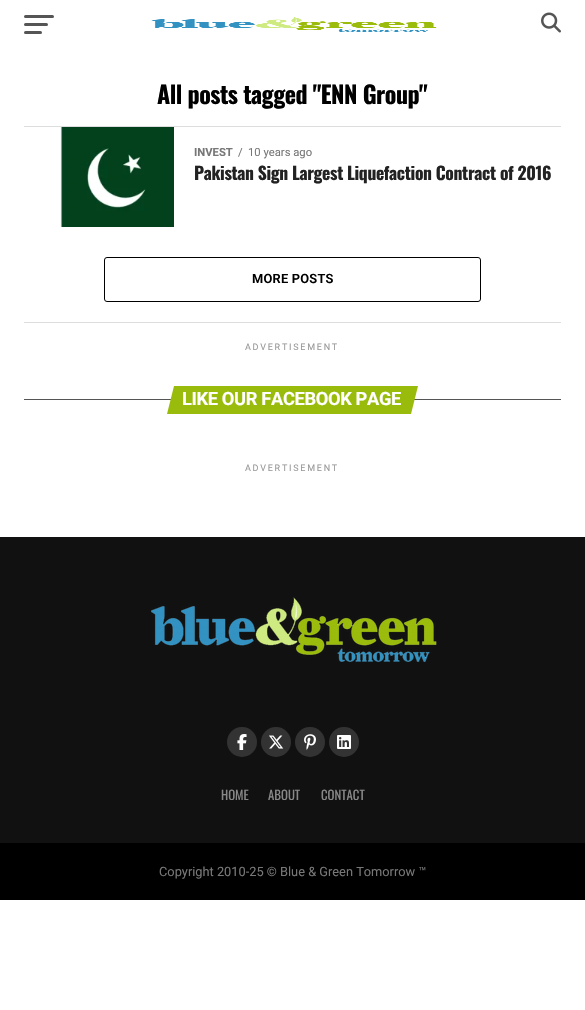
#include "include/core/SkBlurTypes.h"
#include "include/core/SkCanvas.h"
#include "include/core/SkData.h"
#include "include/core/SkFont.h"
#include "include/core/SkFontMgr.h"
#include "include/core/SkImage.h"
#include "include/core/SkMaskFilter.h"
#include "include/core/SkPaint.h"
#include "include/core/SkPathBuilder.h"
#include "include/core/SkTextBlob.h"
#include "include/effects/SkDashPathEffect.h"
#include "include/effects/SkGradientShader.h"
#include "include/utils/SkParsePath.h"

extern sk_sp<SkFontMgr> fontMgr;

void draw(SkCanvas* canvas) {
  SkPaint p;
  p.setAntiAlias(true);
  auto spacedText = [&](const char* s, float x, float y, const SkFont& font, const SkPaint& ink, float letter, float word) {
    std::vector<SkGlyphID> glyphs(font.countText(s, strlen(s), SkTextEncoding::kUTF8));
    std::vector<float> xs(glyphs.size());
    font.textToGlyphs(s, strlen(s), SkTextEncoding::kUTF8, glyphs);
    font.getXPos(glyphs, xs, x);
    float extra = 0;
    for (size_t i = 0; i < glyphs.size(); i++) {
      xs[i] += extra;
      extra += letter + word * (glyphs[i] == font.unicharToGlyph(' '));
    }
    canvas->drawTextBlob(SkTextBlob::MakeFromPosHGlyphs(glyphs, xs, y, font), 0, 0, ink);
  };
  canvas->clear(SK_ColorWHITE);
  p.setColor(SkColorSetRGB(85, 85, 85));
  canvas->drawRoundRect(SkRect::MakeLTRB(24, 15, 54, 18), 1.5f, 1.5f, p);
  canvas->drawRoundRect(SkRect::MakeLTRB(24, 23, 48, 26), 1.5f, 1.5f, p);
  canvas->drawRoundRect(SkRect::MakeLTRB(24, 31, 42, 34), 1.5f, 1.5f, p);
  canvas->drawImageRect(SkImages::DeferredFromEncodedData(SkData::MakeFromFileName("images/1.png")), SkRect::MakeLTRB(151, 17, 437, 32), SkSamplingOptions());
  canvas->drawImageRect(SkImages::DeferredFromEncodedData(SkData::MakeFromFileName("images/2.png")), SkRect::MakeLTRB(541, 12, 561, 33), SkSamplingOptions());
  p.setColor(SkColorSetRGB(221, 221, 221));
  canvas->drawRect(SkRect::MakeLTRB(24, 126, 561, 127), p);
  canvas->drawImageRect(SkImages::DeferredFromEncodedData(SkData::MakeFromFileName("images/3.png")), SkRect::MakeLTRB(24, 127, 174, 227), SkSamplingOptions());
  p.setStyle(SkPaint::kStroke_Style);
  p.setStrokeWidth(1);
  p.setColor(SK_ColorBLACK);
  canvas->drawRoundRect(SkRect::MakeLTRB(104.5f, 257.5f, 480.5f, 301.5f), 2.5f, 2.5f, p);
  p.setStyle(SkPaint::kFill_Style);
  p.setColor(SkColorSetRGB(221, 221, 221));
  canvas->drawRect(SkRect::MakeLTRB(24, 322, 561, 323), p);
  p.setColor(SkColorSetRGB(85, 85, 85));
  canvas->drawRect(SkRect::MakeLTRB(24, 399, 561, 400), p);
  p.setColor(SkColorSetRGB(153, 187, 11));
  canvas->drawPath(SkPathBuilder().moveTo(174, 386).lineTo(418, 386).lineTo(411, 414).lineTo(167, 414).close().detach(), p);
  p.setColor(SkColorSetRGB(17, 17, 17));
  canvas->drawRect(SkRect::MakeLTRB(0, 537, 585, 843), p);
  canvas->drawImageRect(SkImages::DeferredFromEncodedData(SkData::MakeFromFileName("images/4.png")), SkRect::MakeLTRB(151, 597, 437, 662), SkSamplingOptions());
  p.setColor(SkColorSetRGB(51, 51, 51));
  canvas->drawCircle(242, 742, 15, p);
  canvas->drawImageRect(SkImages::DeferredFromEncodedData(SkData::MakeFromFileName("images/5.png")), SkRect::MakeLTRB(237, 734, 247, 750), SkSamplingOptions());
  canvas->drawCircle(276, 742, 15, p);
  canvas->drawImageRect(SkImages::DeferredFromEncodedData(SkData::MakeFromFileName("images/6.png")), SkRect::MakeLTRB(269, 735, 284, 749), SkSamplingOptions());
  canvas->drawCircle(310, 742, 15, p);
  canvas->drawImageRect(SkImages::DeferredFromEncodedData(SkData::MakeFromFileName("images/7.png")), SkRect::MakeLTRB(304, 734, 316, 750), SkSamplingOptions());
  canvas->drawCircle(344, 742, 15, p);
  canvas->drawImageRect(SkImages::DeferredFromEncodedData(SkData::MakeFromFileName("images/8.png")), SkRect::MakeLTRB(337, 735, 351, 749), SkSamplingOptions());
  p.setColor(SK_ColorBLACK);
  canvas->drawRect(SkRect::MakeLTRB(0, 843, 585, 900), p);
  SkFont font1(fontMgr->matchFamilyStyle("Oswald", SkFontStyle::Bold()), 24);
  font1.setSubpixel(true);
  spacedText("All posts tagged \"ENN Group\"", 157, 104, font1, p, -0.5f, 0);
  SkFont font2(fontMgr->matchFamilyStyle("Roboto", SkFontStyle::Bold()), 11.25f);
  font2.setSubpixel(true);
  p.setColor(SkColorSetRGB(119, 119, 119));
  canvas->drawString("INVEST", 194, 156, font2, p);
  SkFont font3(fontMgr->matchFamilyStyle("Roboto", SkFontStyle::Normal()), 11.25f);
  font3.setSubpixel(true);
  canvas->drawString("/", 238, 156, font3, p);
  canvas->drawString("10 years ago", 248, 156, font3, p);
  SkFont font4(fontMgr->matchFamilyStyle("Oswald", SkFontStyle::Bold()), 17.6f);
  font4.setSubpixel(true);
  p.setColor(SkColorSetRGB(34, 34, 34));
  spacedText("Pakistan Sign Largest Liquefaction Contract of 2016", 194, 180, font4, p, -0.35f, 0);
  SkFont font5(fontMgr->matchFamilyStyle("Roboto", SkFontStyle(600, SkFontStyle::kNormal_Width, SkFontStyle::kUpright_Slant)), 12.8f);
  font5.setSubpixel(true);
  p.setColor(SK_ColorBLACK);
  spacedText("MORE POSTS", 252, 283, font5, p, 0.25f, 0);
  SkFont font6(fontMgr->matchFamilyStyle("Roboto", SkFontStyle::Normal()), 9);
  font6.setSubpixel(true);
  p.setColor(SkColorSetRGB(153, 153, 153));
  spacedText("ADVERTISEMENT", 245, 350, font6, p, 1.75f, 0);
  SkFont font7(fontMgr->matchFamilyStyle("Roboto", SkFontStyle::Bold()), 18.25f);
  font7.setSubpixel(true);
  p.setColor(SK_ColorWHITE);
  spacedText("LIKE OUR FACEBOOK PAGE", 182, 405, font7, p, -0.35f, 0);
  p.setColor(SkColorSetRGB(153, 153, 153));
  spacedText("ADVERTISEMENT", 245, 471, font6, p, 1.75f, 0);
  SkFont font8(fontMgr->matchFamilyStyle("Oswald", SkFontStyle::Normal()), 12.8f);
  font8.setSubpixel(true);
  p.setColor(SkColorSetRGB(136, 136, 136));
  canvas->drawString("HOME", 221, 800, font8, p);
  canvas->drawString("ABOUT", 268, 800, font8, p);
  canvas->drawString("CONTACT", 321, 800, font8, p);
  SkFont font9(fontMgr->matchFamilyStyle("Roboto", SkFontStyle::Normal()), 12.8f);
  font9.setSubpixel(true);
  p.setColor(SkColorSetRGB(119, 119, 119));
  canvas->drawString("Copyright 2010-25 © Blue & Green Tomorrow ™", 159, 876, font9, p);
}
